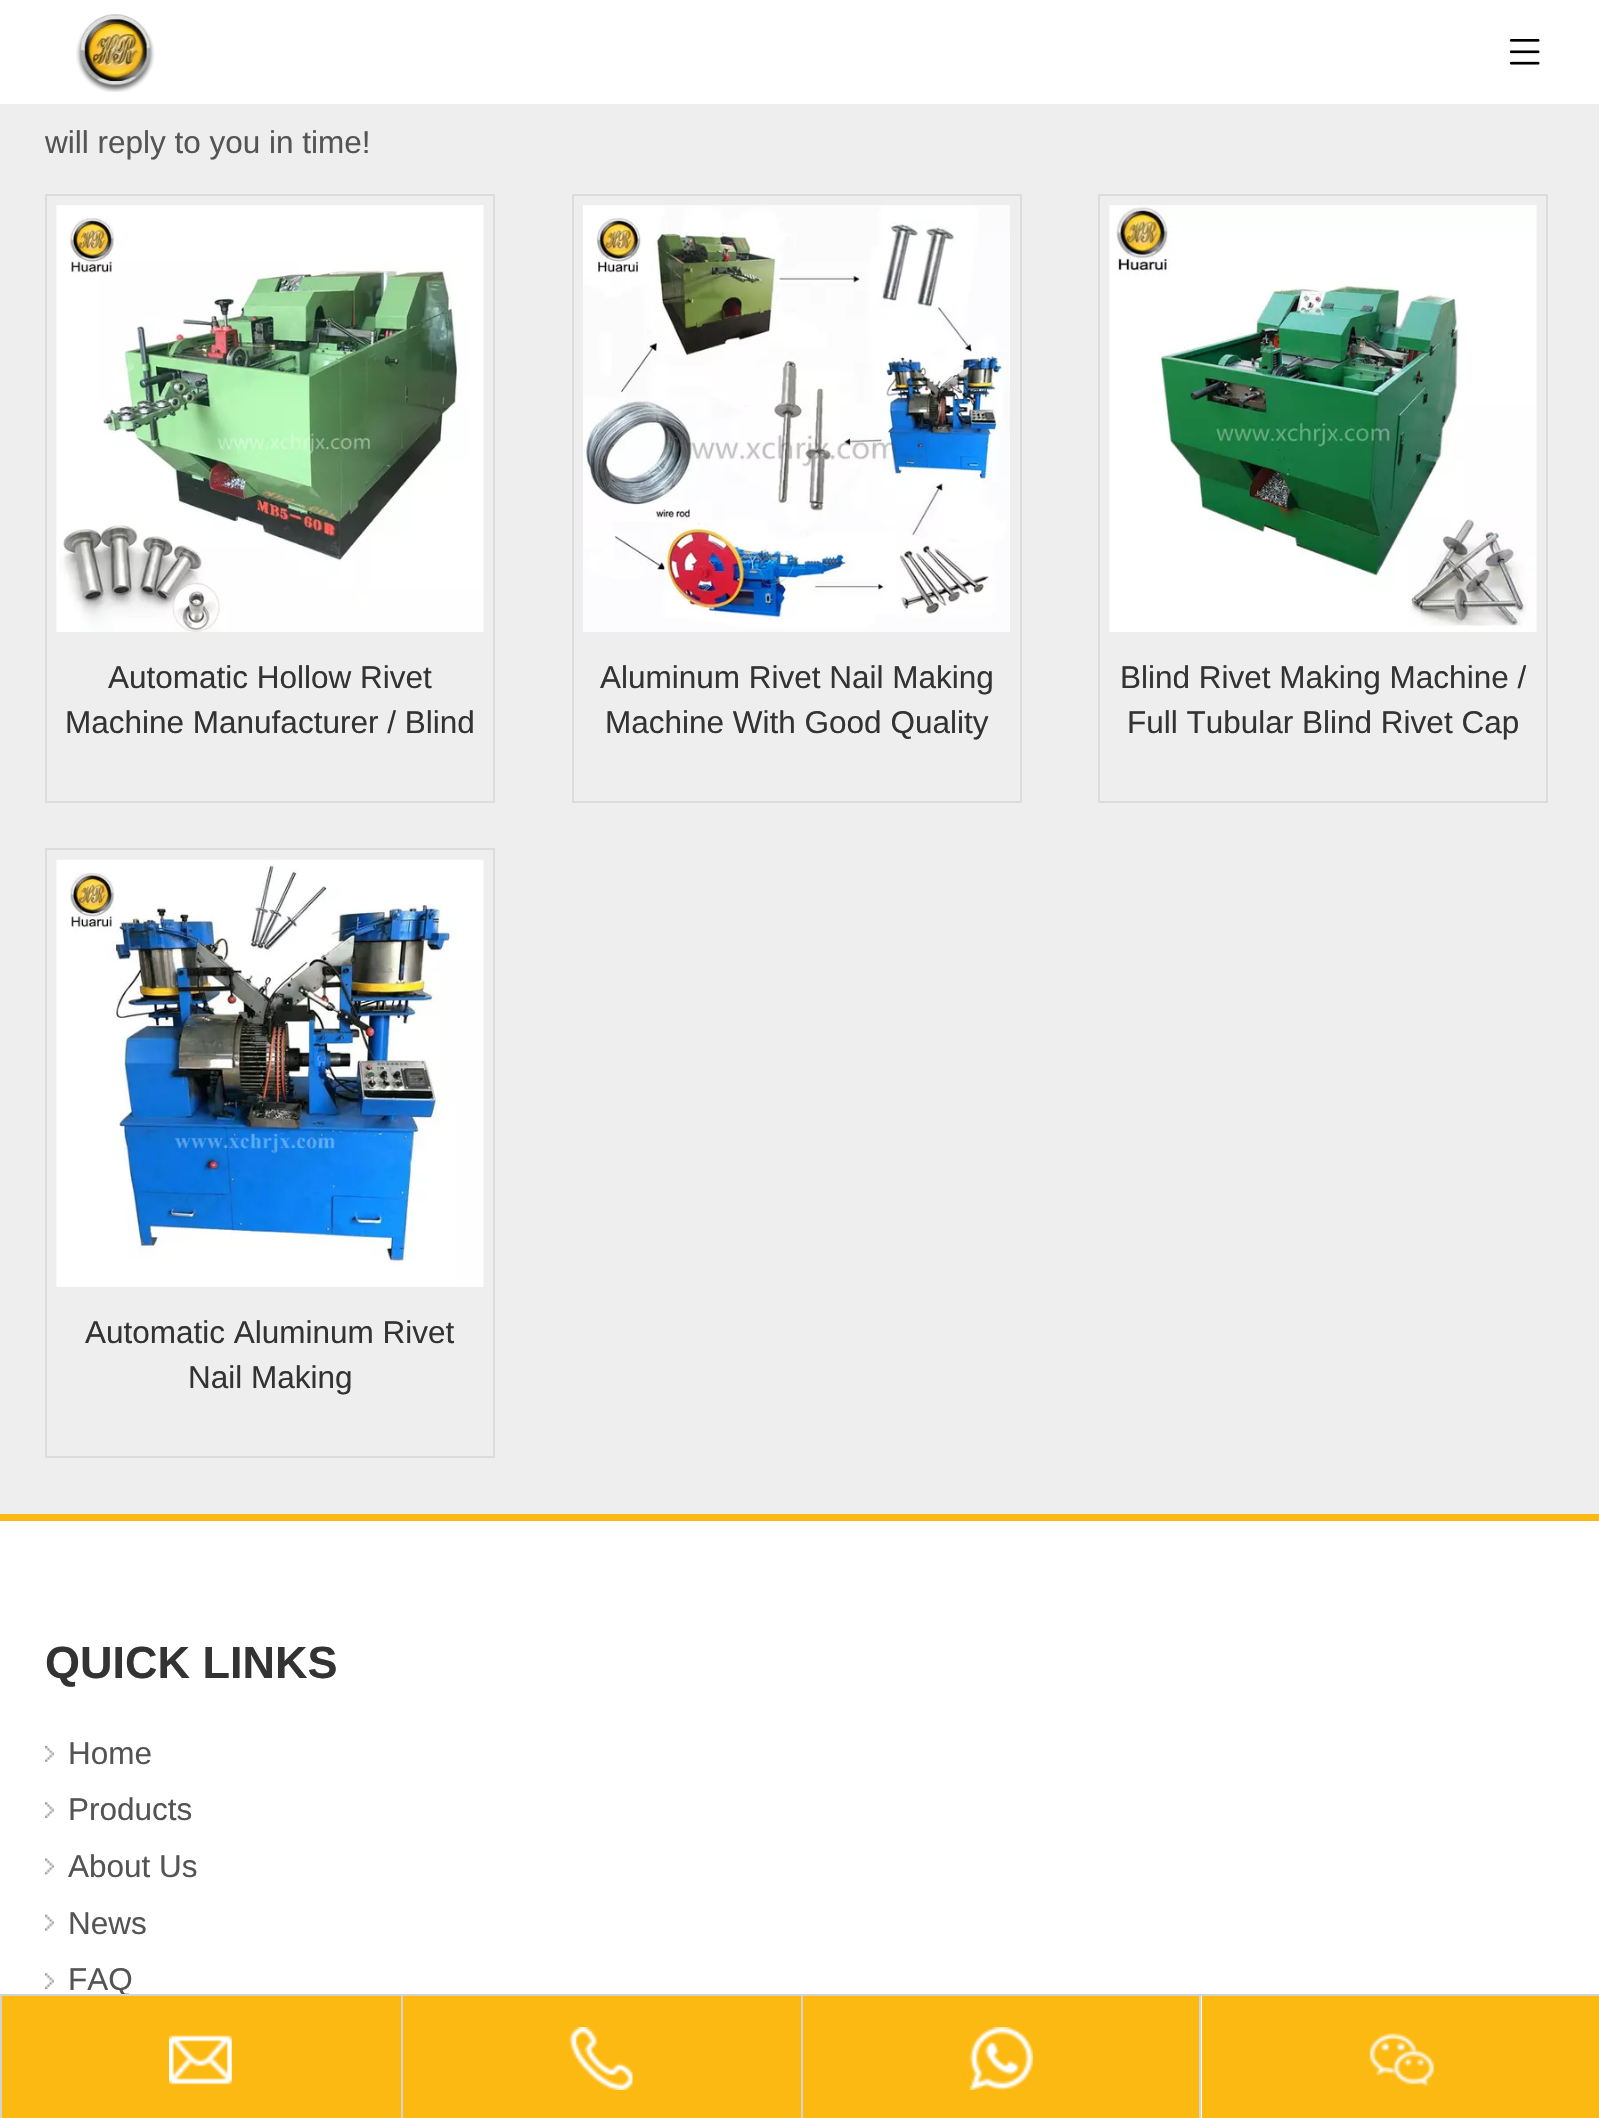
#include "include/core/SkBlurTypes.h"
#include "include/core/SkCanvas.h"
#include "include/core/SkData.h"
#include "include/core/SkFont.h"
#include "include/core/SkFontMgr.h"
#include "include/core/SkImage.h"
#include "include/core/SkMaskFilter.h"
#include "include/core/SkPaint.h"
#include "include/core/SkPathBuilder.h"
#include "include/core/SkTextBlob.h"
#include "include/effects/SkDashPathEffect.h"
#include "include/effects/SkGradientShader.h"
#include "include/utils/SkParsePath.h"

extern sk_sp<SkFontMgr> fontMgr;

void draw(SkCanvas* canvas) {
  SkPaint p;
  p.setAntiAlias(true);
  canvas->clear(SkColorSetRGB(238, 238, 238));
  p.setColor(SK_ColorWHITE);
  canvas->drawRect(SkRect::MakeLTRB(0, 0, 1599, 104), p);
  canvas->drawImageRect(SkImages::DeferredFromEncodedData(SkData::MakeFromFileName("images/1.png")), SkRect::MakeLTRB(76, 14, 155, 92), SkSamplingOptions());
  canvas->drawImageRect(SkImages::DeferredFromEncodedData(SkData::MakeFromFileName("images/2.png")), SkRect::MakeLTRB(1509, 39, 1540, 65), SkSamplingOptions());
  p.setStyle(SkPaint::kStroke_Style);
  p.setStrokeWidth(2);
  p.setColor(SkColorSetRGB(220, 220, 220));
  canvas->drawRect(SkRect::MakeLTRB(46, 195, 494, 802), p);
  canvas->drawImageRect(SkImages::DeferredFromEncodedData(SkData::MakeFromFileName("images/3.png")), SkRect::MakeLTRB(56, 205, 484, 632), SkSamplingOptions());
  canvas->drawRect(SkRect::MakeLTRB(573, 195, 1021, 802), p);
  canvas->drawImageRect(SkImages::DeferredFromEncodedData(SkData::MakeFromFileName("images/4.png")), SkRect::MakeLTRB(583, 205, 1010, 632), SkSamplingOptions());
  canvas->drawRect(SkRect::MakeLTRB(1099, 195, 1547, 802), p);
  canvas->drawImageRect(SkImages::DeferredFromEncodedData(SkData::MakeFromFileName("images/5.png")), SkRect::MakeLTRB(1109, 205, 1537, 632), SkSamplingOptions());
  canvas->drawRect(SkRect::MakeLTRB(46, 849, 494, 1457), p);
  canvas->drawImageRect(SkImages::DeferredFromEncodedData(SkData::MakeFromFileName("images/6.png")), SkRect::MakeLTRB(56, 859, 484, 1287), SkSamplingOptions());
  p.setStyle(SkPaint::kFill_Style);
  p.setColor(SK_ColorWHITE);
  canvas->drawRect(SkRect::MakeLTRB(0, 1521, 1599, 2118), p);
  p.setColor(SkColorSetRGB(252, 185, 18));
  canvas->drawRect(SkRect::MakeLTRB(0, 1514, 1599, 1521), p);
  canvas->drawImageRect(SkImages::DeferredFromEncodedData(SkData::MakeFromFileName("images/7.png")), SkRect::MakeLTRB(45, 1746, 54, 1762), SkSamplingOptions());
  canvas->drawImageRect(SkImages::DeferredFromEncodedData(SkData::MakeFromFileName("images/8.png")), SkRect::MakeLTRB(45, 1802, 54, 1818), SkSamplingOptions());
  canvas->drawImageRect(SkImages::DeferredFromEncodedData(SkData::MakeFromFileName("images/9.png")), SkRect::MakeLTRB(45, 1858, 54, 1875), SkSamplingOptions());
  canvas->drawImageRect(SkImages::DeferredFromEncodedData(SkData::MakeFromFileName("images/10.png")), SkRect::MakeLTRB(45, 1914, 54, 1931), SkSamplingOptions());
  canvas->drawImageRect(SkImages::DeferredFromEncodedData(SkData::MakeFromFileName("images/8.png")), SkRect::MakeLTRB(45, 1973, 54, 1989), SkSamplingOptions());
  p.setColor(SkColorSetRGB(211, 211, 211));
  canvas->drawRect(SkRect::MakeLTRB(0, 1996, 2, 2118), p);
  p.setColor(SkColorSetRGB(252, 185, 18));
  canvas->drawRect(SkRect::MakeLTRB(2, 1996, 401, 2118), p);
  canvas->drawImageRect(SkImages::DeferredFromEncodedData(SkData::MakeFromFileName("images/11.png")), SkRect::MakeLTRB(169, 2035, 232, 2085), SkSamplingOptions());
  p.setColor(SkColorSetRGB(211, 211, 211));
  canvas->drawRect(SkRect::MakeLTRB(401, 1996, 403, 2118), p);
  p.setColor(SkColorSetRGB(252, 185, 18));
  canvas->drawRect(SkRect::MakeLTRB(403, 1996, 801, 2118), p);
  canvas->drawImageRect(SkImages::DeferredFromEncodedData(SkData::MakeFromFileName("images/12.png")), SkRect::MakeLTRB(568, 2027, 633, 2090), SkSamplingOptions());
  p.setColor(SkColorSetRGB(211, 211, 211));
  canvas->drawRect(SkRect::MakeLTRB(801, 1996, 803, 2118), p);
  p.setColor(SkColorSetRGB(252, 185, 18));
  canvas->drawRect(SkRect::MakeLTRB(803, 1996, 1199, 2118), p);
  canvas->drawImageRect(SkImages::DeferredFromEncodedData(SkData::MakeFromFileName("images/13.png")), SkRect::MakeLTRB(969, 2027, 1033, 2090), SkSamplingOptions());
  p.setColor(SkColorSetRGB(211, 211, 211));
  canvas->drawRect(SkRect::MakeLTRB(1199, 1996, 1201, 2118), p);
  p.setColor(SkColorSetRGB(252, 185, 18));
  canvas->drawRect(SkRect::MakeLTRB(1202, 1996, 1599, 2118), p);
  canvas->drawImageRect(SkImages::DeferredFromEncodedData(SkData::MakeFromFileName("images/14.png")), SkRect::MakeLTRB(1369, 2033, 1434, 2087), SkSamplingOptions());
  SkFont font1(fontMgr->matchFamilyStyle("Liberation Sans", SkFontStyle::Normal()), 31.5f);
  font1.setSubpixel(true);
  p.setColor(SkColorSetRGB(84, 84, 84));
  canvas->drawString("will reply to you in time!", 45, 153, font1, p);
  p.setColor(SkColorSetRGB(51, 51, 51));
  canvas->drawString("Automatic Hollow Rivet", 108, 688, font1, p);
  canvas->drawString("Machine Manufacturer / Blind", 65, 733, font1, p);
  canvas->drawString("Aluminum Rivet Nail Making", 600, 688, font1, p);
  canvas->drawString("Machine With Good Quality", 605, 733, font1, p);
  canvas->drawString("Blind Rivet Making Machine /", 1120, 688, font1, p);
  canvas->drawString("Full Tubular Blind Rivet Cap", 1127, 733, font1, p);
  canvas->drawString("Automatic Aluminum Rivet", 85, 1343, font1, p);
  canvas->drawString("Nail Making", 188, 1388, font1, p);
  SkFont font2(fontMgr->matchFamilyStyle("Liberation Sans", SkFontStyle::Bold()), 45);
  font2.setSubpixel(true);
  canvas->drawString("QUICK LINKS", 45, 1678, font2, p);
  p.setColor(SkColorSetRGB(84, 84, 84));
  canvas->drawString("Home", 68, 1764, font1, p);
  canvas->drawString("Products", 68, 1820, font1, p);
  canvas->drawString("About Us", 68, 1877, font1, p);
  canvas->drawString("News", 68, 1934, font1, p);
  canvas->drawString("FAQ", 68, 1990, font1, p);
  p.setColor(SkColorSetRGB(211, 211, 211));
  canvas->drawRect(SkRect::MakeLTRB(0, 1994, 1599, 1996), p);
}
